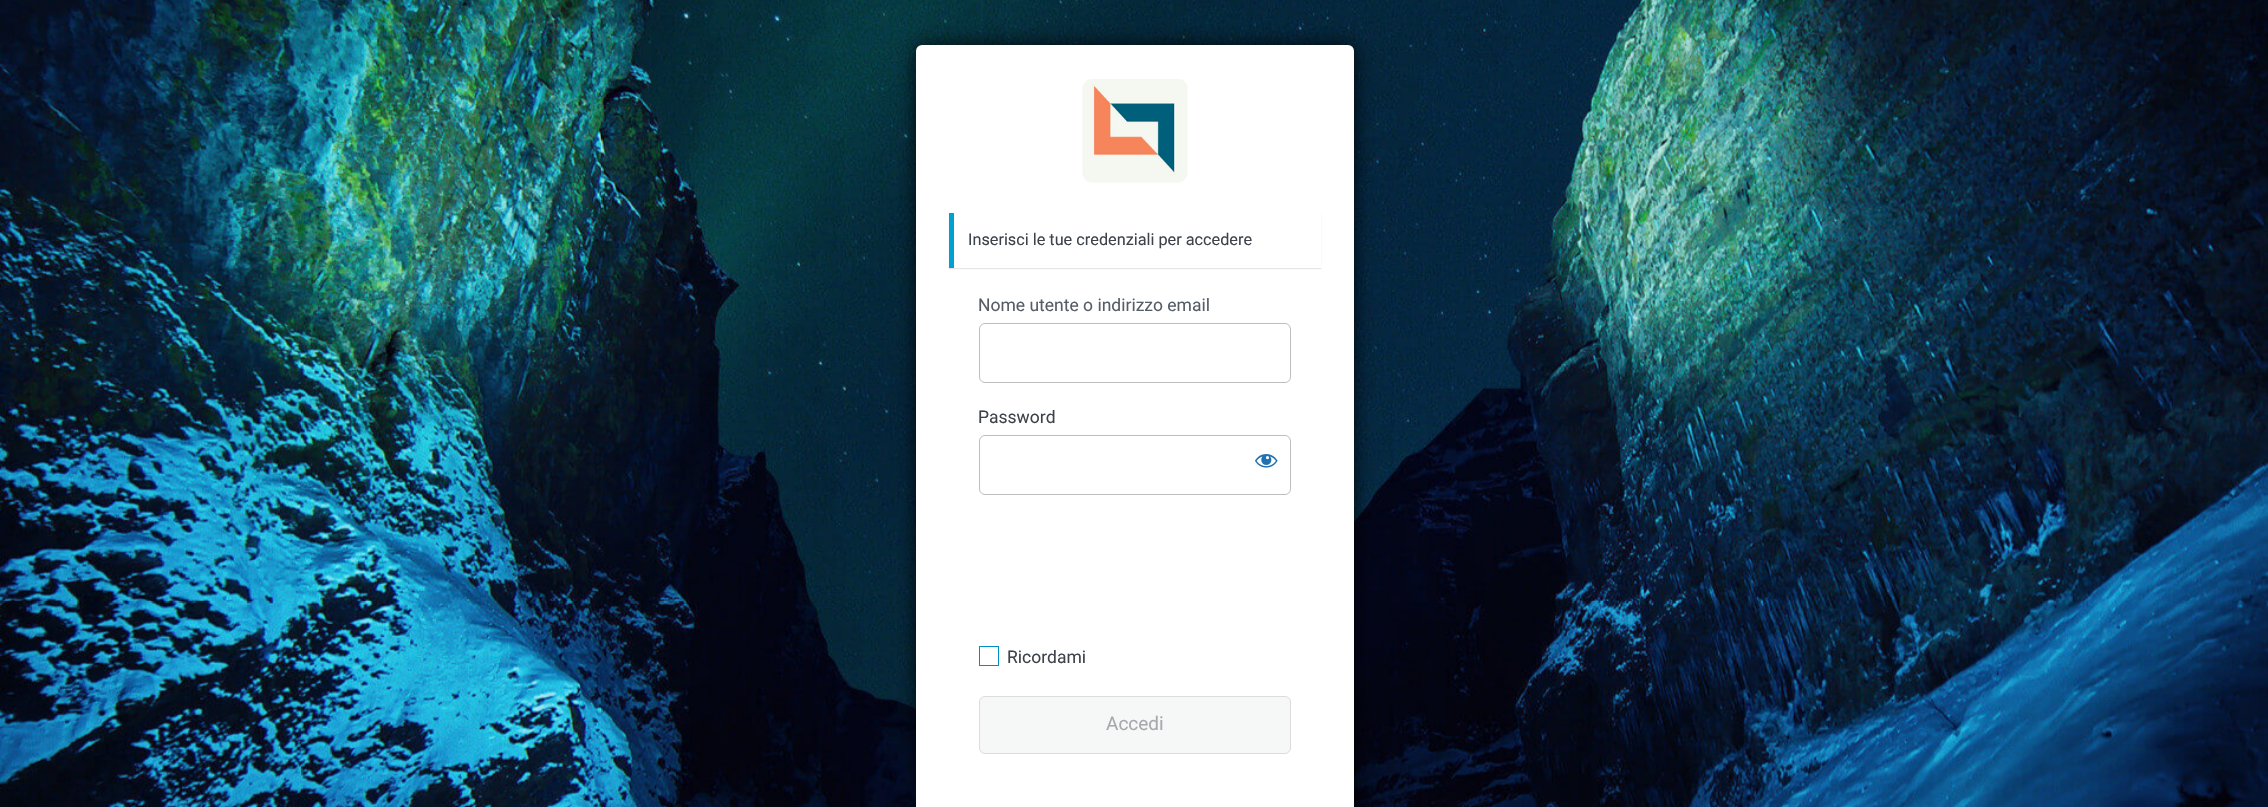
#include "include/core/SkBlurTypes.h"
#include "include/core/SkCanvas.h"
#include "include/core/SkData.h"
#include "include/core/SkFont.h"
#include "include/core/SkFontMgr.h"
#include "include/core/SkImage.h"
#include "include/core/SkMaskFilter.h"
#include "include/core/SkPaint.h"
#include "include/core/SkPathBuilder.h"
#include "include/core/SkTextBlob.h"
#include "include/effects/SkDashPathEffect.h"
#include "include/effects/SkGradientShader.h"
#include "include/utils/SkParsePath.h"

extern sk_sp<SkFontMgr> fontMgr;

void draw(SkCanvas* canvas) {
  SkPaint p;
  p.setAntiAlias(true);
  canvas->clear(SK_ColorWHITE);
  canvas->drawImageRect(SkImages::DeferredFromEncodedData(SkData::MakeFromFileName("images/1.png")), SkRect::MakeLTRB(0, 0, 2268, 807), SkSamplingOptions());
  p.setColor(SkColorSetARGB(204, 0, 0, 0));
  p.setMaskFilter(SkMaskFilter::MakeBlur(kNormal_SkBlurStyle, 9.5f));
  canvas->drawRoundRect(SkRect::MakeLTRB(916, 45, 1354, 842), 6, 6, p);
  p.setMaskFilter(nullptr);
  p.setColor(SK_ColorWHITE);
  canvas->drawRoundRect(SkRect::MakeLTRB(916, 45, 1354, 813), 6, 6, p);
  canvas->drawImageRect(SkImages::DeferredFromEncodedData(SkData::MakeFromFileName("images/2.png")), SkRect::MakeLTRB(1082, 79, 1188, 183), SkSamplingOptions());
  p.setColor(SkColorSetARGB(26, 0, 0, 0));
  p.setMaskFilter(SkMaskFilter::MakeBlur(kNormal_SkBlurStyle, 0.5f));
  canvas->drawRect(SkRect::MakeLTRB(949, 214, 1321, 269), p);
  p.setMaskFilter(nullptr);
  p.setColor(SK_ColorWHITE);
  canvas->drawRect(SkRect::MakeLTRB(954, 213, 1321, 268), p);
  p.setColor(SkColorSetRGB(0, 160, 210));
  canvas->drawRect(SkRect::MakeLTRB(949, 213, 954, 268), p);
  p.setStyle(SkPaint::kStroke_Style);
  p.setStrokeWidth(1);
  p.setColor(SkColorSetRGB(189, 189, 189));
  canvas->drawRoundRect(SkRect::MakeLTRB(979.5f, 323.5f, 1290.5f, 382.5f), 5.5f, 5.5f, p);
  canvas->drawRoundRect(SkRect::MakeLTRB(979.5f, 435.5f, 1290.5f, 494.5f), 5.5f, 5.5f, p);
  canvas->drawImageRect(SkImages::DeferredFromEncodedData(SkData::MakeFromFileName("images/3.png")), SkRect::MakeLTRB(1255, 454, 1278, 468), SkSamplingOptions());
  p.setColor(SkColorSetRGB(0, 142, 194));
  canvas->drawRect(SkRect::MakeLTRB(979.5f, 646.5f, 998.5f, 665.5f), p);
  p.setStyle(SkPaint::kFill_Style);
  p.setColor(SkColorSetRGB(246, 247, 247));
  canvas->drawRoundRect(SkRect::MakeLTRB(979.5f, 696.5f, 1290.5f, 753.5f), 5.5f, 5.5f, p);
  p.setStyle(SkPaint::kStroke_Style);
  p.setColor(SkColorSetRGB(220, 220, 222));
  canvas->drawRoundRect(SkRect::MakeLTRB(979.5f, 696.5f, 1290.5f, 753.5f), 5.5f, 5.5f, p);
  SkFont font1(fontMgr->matchFamilyStyle("Roboto", SkFontStyle::Normal()), 16.25f);
  font1.setSubpixel(true);
  p.setStyle(SkPaint::kFill_Style);
  p.setColor(SkColorSetRGB(60, 67, 74));
  canvas->drawString("Inserisci le tue credenziali per accedere", 968, 245, font1, p);
  SkFont font2(fontMgr->matchFamilyStyle("Roboto", SkFontStyle::Normal()), 17.5f);
  font2.setSubpixel(true);
  p.setColor(SkColorSetRGB(85, 93, 102));
  canvas->drawString("Nome utente o indirizzo email", 978, 311, font2, p);
  p.setColor(SkColorSetRGB(60, 67, 74));
  canvas->drawString("Password", 978, 423, font2, p);
  canvas->drawString("Ricordami", 1007, 663, font2, p);
  SkFont font3(fontMgr->matchFamilyStyle("Roboto", SkFontStyle::Normal()), 19);
  font3.setSubpixel(true);
  p.setColor(SkColorSetRGB(167, 170, 173));
  canvas->drawString("Accedi", 1106, 730, font3, p);
}
